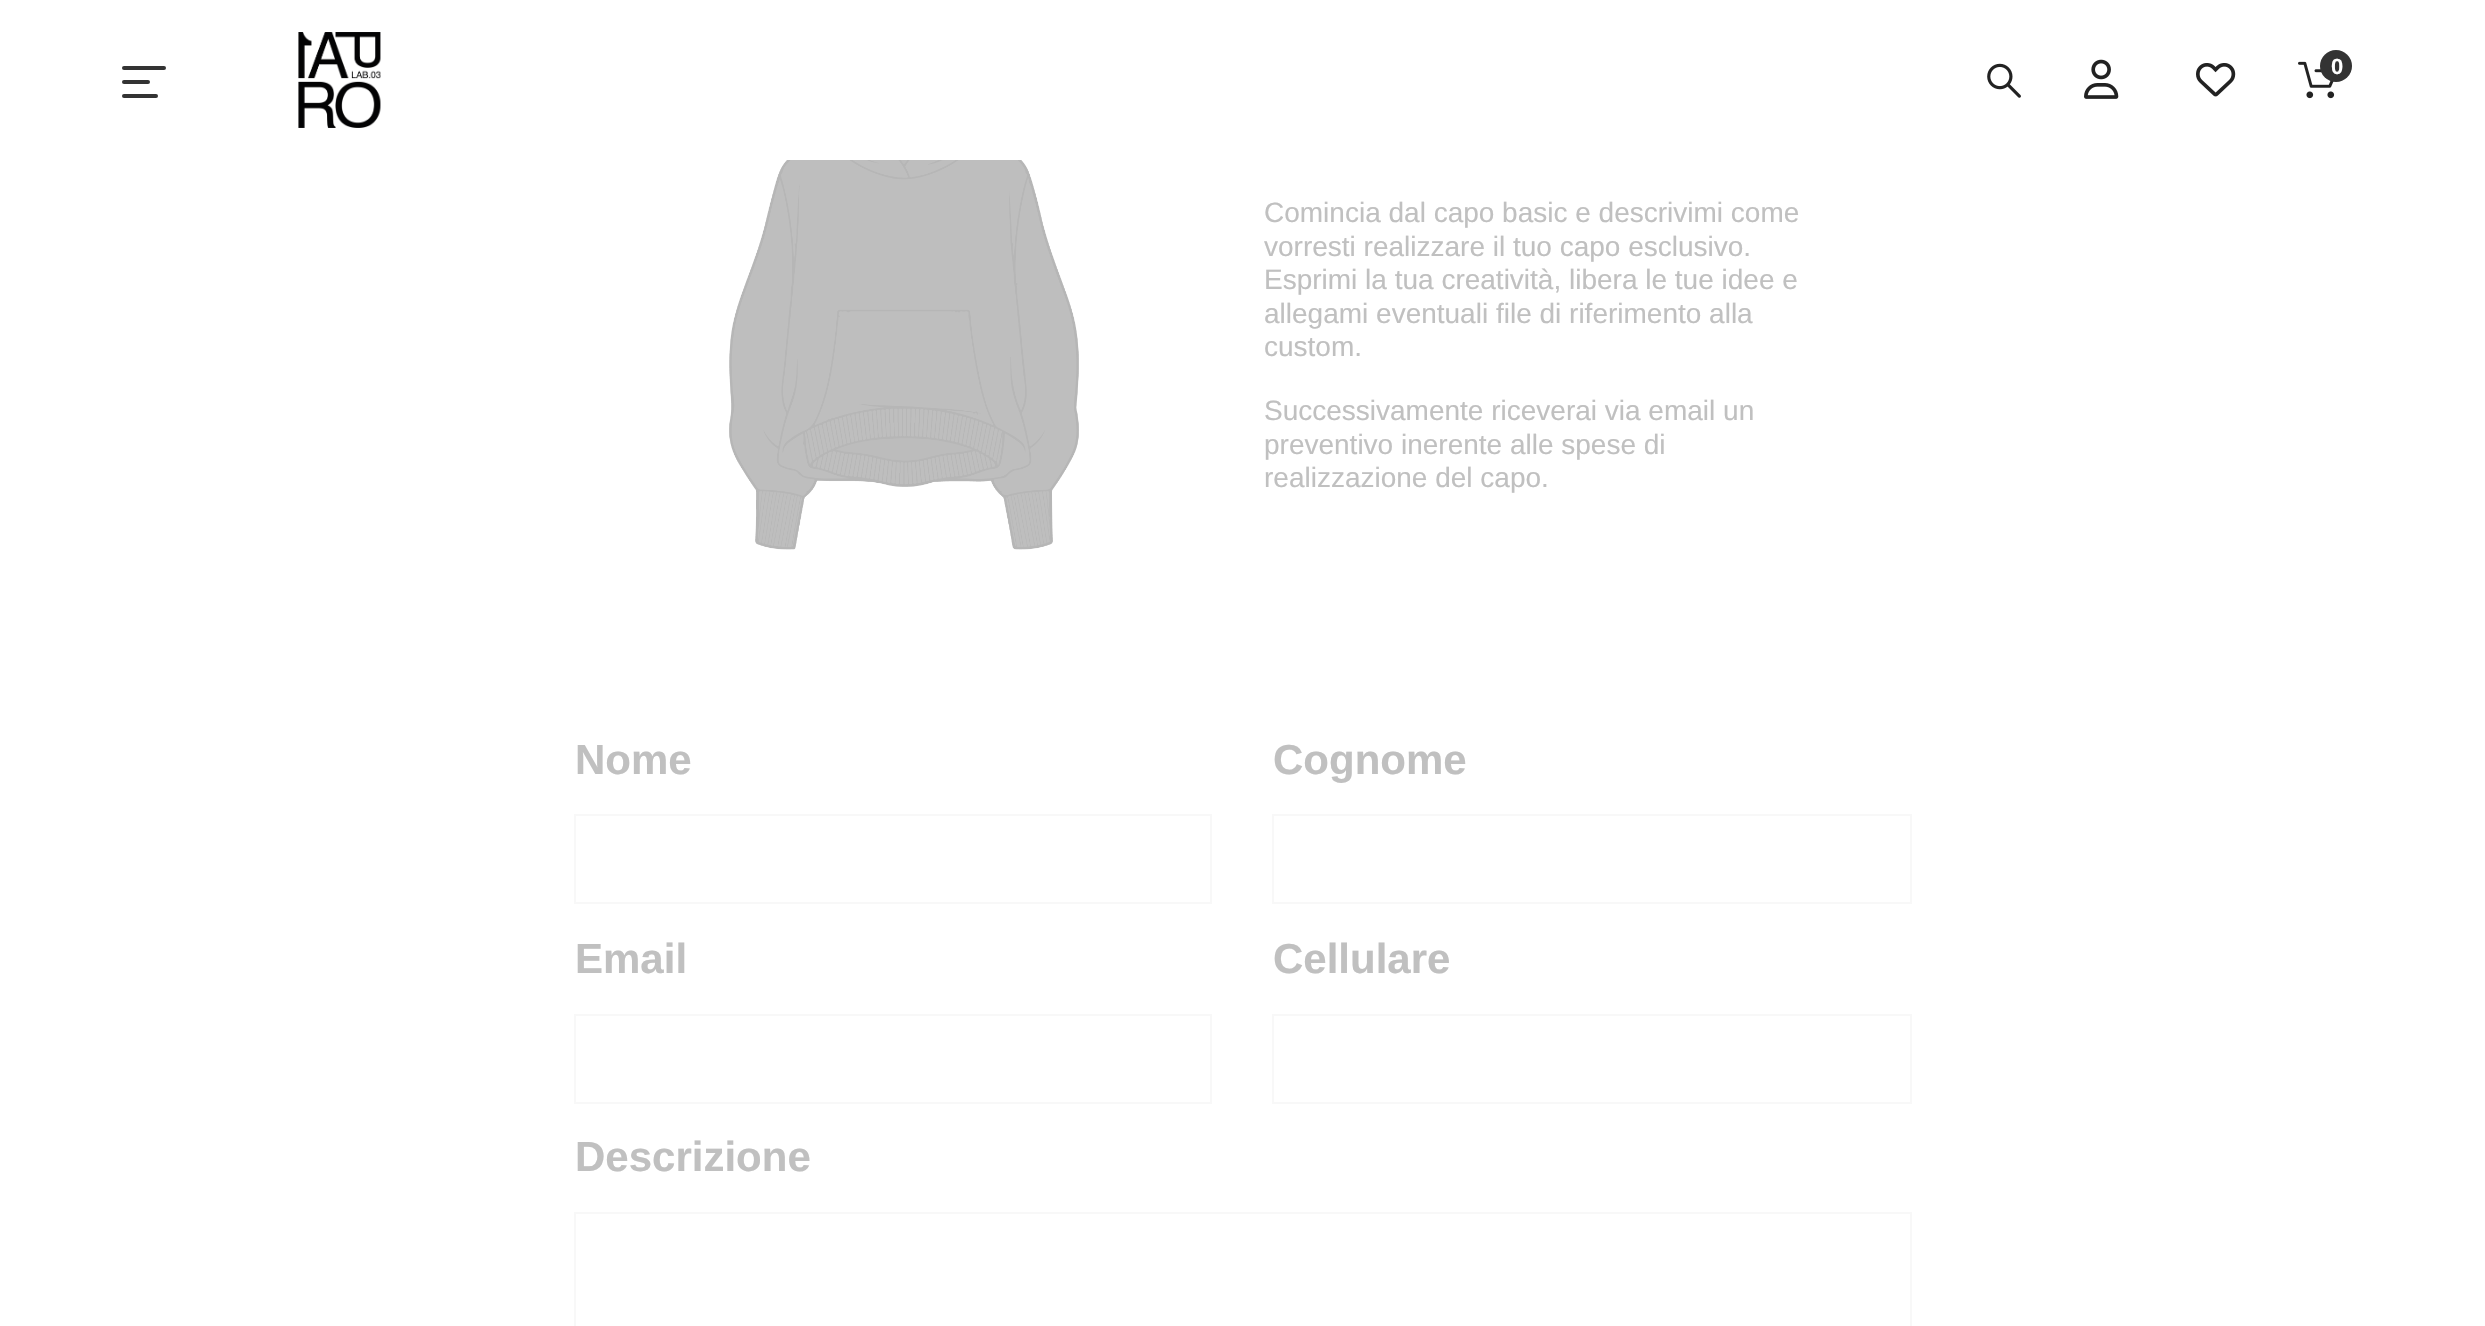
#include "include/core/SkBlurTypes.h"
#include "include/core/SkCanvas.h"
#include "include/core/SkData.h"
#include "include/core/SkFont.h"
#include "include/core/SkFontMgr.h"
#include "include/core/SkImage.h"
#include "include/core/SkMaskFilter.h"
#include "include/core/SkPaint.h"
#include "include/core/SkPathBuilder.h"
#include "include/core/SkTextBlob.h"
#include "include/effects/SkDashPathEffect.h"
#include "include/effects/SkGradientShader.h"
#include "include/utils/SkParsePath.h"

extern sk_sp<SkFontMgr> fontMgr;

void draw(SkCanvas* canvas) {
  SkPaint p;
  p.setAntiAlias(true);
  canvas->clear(SK_ColorWHITE);
  p.setColor(SkColorSetRGB(51, 51, 51));
  canvas->drawRoundRect(SkRect::MakeLTRB(122, 66, 166, 70), 2, 2, p);
  canvas->drawRoundRect(SkRect::MakeLTRB(122, 80, 150, 84), 2, 2, p);
  canvas->drawRoundRect(SkRect::MakeLTRB(122, 94, 158, 98), 2, 2, p);
  canvas->drawImageRect(SkImages::DeferredFromEncodedData(SkData::MakeFromFileName("images/1.png")), SkRect::MakeLTRB(298, 32, 381, 128), SkSamplingOptions());
  canvas->drawImageRect(SkImages::DeferredFromEncodedData(SkData::MakeFromFileName("images/2.png")), SkRect::MakeLTRB(1987, 63, 2021, 98), SkSamplingOptions());
  canvas->drawImageRect(SkImages::DeferredFromEncodedData(SkData::MakeFromFileName("images/3.png")), SkRect::MakeLTRB(2084, 59, 2119, 99), SkSamplingOptions());
  canvas->drawImageRect(SkImages::DeferredFromEncodedData(SkData::MakeFromFileName("images/4.png")), SkRect::MakeLTRB(2196, 63, 2236, 97), SkSamplingOptions());
  canvas->drawImageRect(SkImages::DeferredFromEncodedData(SkData::MakeFromFileName("images/5.png")), SkRect::MakeLTRB(2298, 61, 2335, 99), SkSamplingOptions());
  canvas->drawCircle(2336, 66, 16, p);
  canvas->drawImageRect(SkImages::DeferredFromEncodedData(SkData::MakeFromFileName("images/6.png")), SkRect::MakeLTRB(729, 160, 1079, 550), SkSamplingOptions());
  p.setStyle(SkPaint::kStroke_Style);
  p.setStrokeWidth(2);
  p.setColor(SkColorSetRGB(248, 248, 248));
  canvas->drawRect(SkRect::MakeLTRB(575, 815, 1211, 903), p);
  canvas->drawRect(SkRect::MakeLTRB(1273, 815, 1911, 903), p);
  canvas->drawRect(SkRect::MakeLTRB(575, 1015, 1211, 1103), p);
  canvas->drawRect(SkRect::MakeLTRB(1273, 1015, 1911, 1103), p);
  canvas->drawRect(SkRect::MakeLTRB(575, 1213, 1911, 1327), p);
  SkFont font1(fontMgr->matchFamilyStyle("Liberation Sans", SkFontStyle::Bold()), 22);
  font1.setSubpixel(true);
  p.setStyle(SkPaint::kFill_Style);
  p.setColor(SK_ColorWHITE);
  canvas->drawString("0", 2331, 74, font1, p);
  SkFont font2(fontMgr->matchFamilyStyle("Liberation Sans", SkFontStyle::Normal()), 28);
  font2.setSubpixel(true);
  p.setColor(SkColorSetRGB(192, 192, 192));
  canvas->drawString("Comincia dal capo basic e descrivimi come", 1264, 222, font2, p);
  canvas->drawString("vorresti realizzare il tuo capo esclusivo.", 1264, 256, font2, p);
  canvas->drawString("Esprimi la tua creatività, libera le tue idee e", 1264, 289, font2, p);
  canvas->drawString("allegami eventuali file di riferimento alla", 1264, 323, font2, p);
  canvas->drawString("custom.", 1264, 356, font2, p);
  canvas->drawString("Successivamente riceverai via email un", 1264, 420, font2, p);
  canvas->drawString("preventivo inerente alle spese di", 1264, 454, font2, p);
  canvas->drawString("realizzazione del capo.", 1264, 487, font2, p);
  SkFont font3(fontMgr->matchFamilyStyle("Liberation Sans", SkFontStyle::Bold()), 42);
  font3.setSubpixel(true);
  canvas->drawString("Nome", 575, 774, font3, p);
  canvas->drawString("Cognome", 1273, 774, font3, p);
  canvas->drawString("Email", 575, 973, font3, p);
  canvas->drawString("Cellulare", 1273, 973, font3, p);
  canvas->drawString("Descrizione", 575, 1171, font3, p);
}
